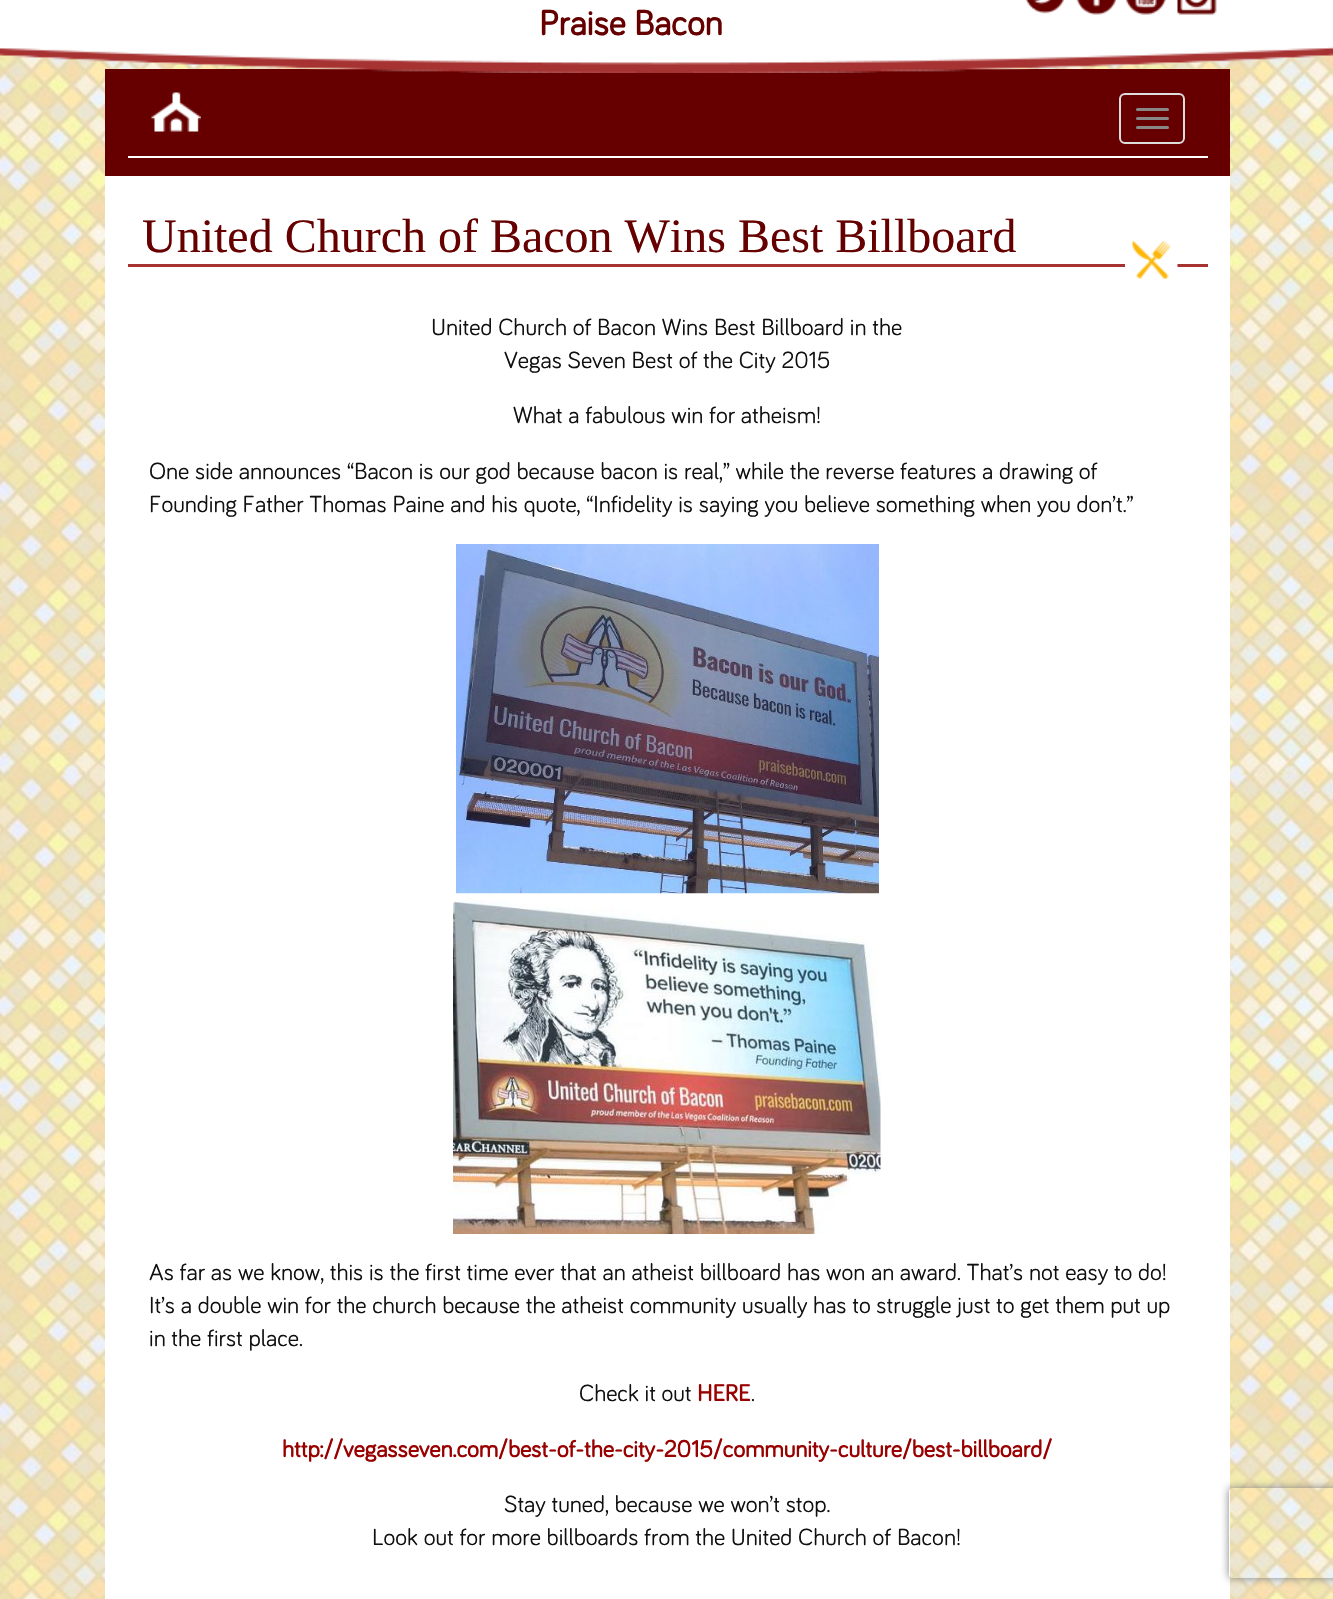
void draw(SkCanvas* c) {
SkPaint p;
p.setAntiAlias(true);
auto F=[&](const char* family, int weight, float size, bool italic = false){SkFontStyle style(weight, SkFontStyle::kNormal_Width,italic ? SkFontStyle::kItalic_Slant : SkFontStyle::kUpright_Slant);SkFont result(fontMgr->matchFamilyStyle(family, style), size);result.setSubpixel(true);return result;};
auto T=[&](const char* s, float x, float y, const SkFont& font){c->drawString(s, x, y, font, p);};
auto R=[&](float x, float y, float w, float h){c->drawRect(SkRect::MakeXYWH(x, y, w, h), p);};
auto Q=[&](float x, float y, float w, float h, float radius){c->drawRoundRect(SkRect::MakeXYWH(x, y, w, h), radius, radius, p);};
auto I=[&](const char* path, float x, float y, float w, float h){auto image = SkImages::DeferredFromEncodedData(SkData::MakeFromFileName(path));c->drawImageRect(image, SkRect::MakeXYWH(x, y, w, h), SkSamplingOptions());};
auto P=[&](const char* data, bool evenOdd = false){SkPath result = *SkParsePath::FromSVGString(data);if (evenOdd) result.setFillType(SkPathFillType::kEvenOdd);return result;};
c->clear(0xffffffff);
I("1.png",0,53,1333,1546);
p.setColor(0xff660000);
R(105,69,1125,107);
I("2.png",0,0,1333,73);
I("3.png",1025,0,39,14);
I("4.png",1076,0,40,15);
I("5.png",1126,0,40,15);
I("6.png",1177,0,40,15);
auto f1 = F("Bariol",700,36);
T("Praise Bacon",539,35,f1);
p.setColor(0xffffffff);
R(128,156,1080,2);
I("7.png",151,92,50,40);
p.setStroke(true);
p.setStrokeWidth(2);
p.setColor(0xffdddddd);
c->drawRoundRect(SkRect::MakeXYWH(1120,94,64,49),5,5,p);
p.setStroke(false);
p.setColor(0xff888888);
Q(1136,108,33,3,1.5);
Q(1136,117,33,3,1.5);
Q(1136,126,33,3,1.5);
p.setColor(0xffffffff);
R(105,176,1125,1423);
p.setColor(0xffa73232);
R(128,264,1080,3);
auto f2 = F("Liberation Serif",400,48);
p.setColor(0xff660000);
T("United Church of Bacon Wins Best Billboard",142,252,f2);
I("8.png",1125,240,53,39);
auto f3 = F("Bariol",400,24);
p.setColor(0xff101010);
T("United Church of Bacon Wins Best Billboard in the",431,335,f3);
T("Vegas Seven Best of the City 2015",504,368,f3);
T("What a fabulous win for atheism!",513,423,f3);
T("One side announces “Bacon is our god because bacon is real,” while the reverse features a drawing of",149,479,f3);
T("Founding Father Thomas Paine and his quote, “Infidelity is saying you believe something when you don’t.”",149,512,f3);
I("9.png",456,544,423,350);
I("10.png",453,893,428,341);
T("As far as we know, this is the first time ever that an atheist billboard has won an award. That’s not easy to do!",149,1280,f3);
T("It’s a double win for the church because the atheist community usually has to struggle just to get them put up",149,1313,f3);
T("in the first place.",149,1346,f3);
T("Check it out",579,1401,f3);
auto f4 = F("Bariol",700,24);
p.setColor(0xff990000);
T("HERE",697,1401,f4);
p.setColor(0xff101010);
T(".",751,1401,f3);
p.setColor(0xff990000);
T("http://vegasseven.com/best-of-the-city-2015/community-culture/best-billboard/",282,1457,f4);
p.setColor(0xff101010);
T("Stay tuned, because we won’t stop.",504,1512,f3);
T("Look out for more billboards from the United Church of Bacon!",372,1545,f3);
c->save();
c->clipPath(P("M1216 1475h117v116h-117zm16 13h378c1.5 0 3 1.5 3 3v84c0 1.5-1.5 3-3 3h-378c-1.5 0-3-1.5-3-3v-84c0-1.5 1.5-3 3-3z",true),true);
p.setColor(0xff808080);
p.setMaskFilter(SkMaskFilter::MakeBlur(kNormal_SkBlurStyle, 4));
c->drawRoundRect(SkRect::MakeXYWH(1229,1488,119,90),3,3,p);
p.setMaskFilter(nullptr);
c->restore();
}
